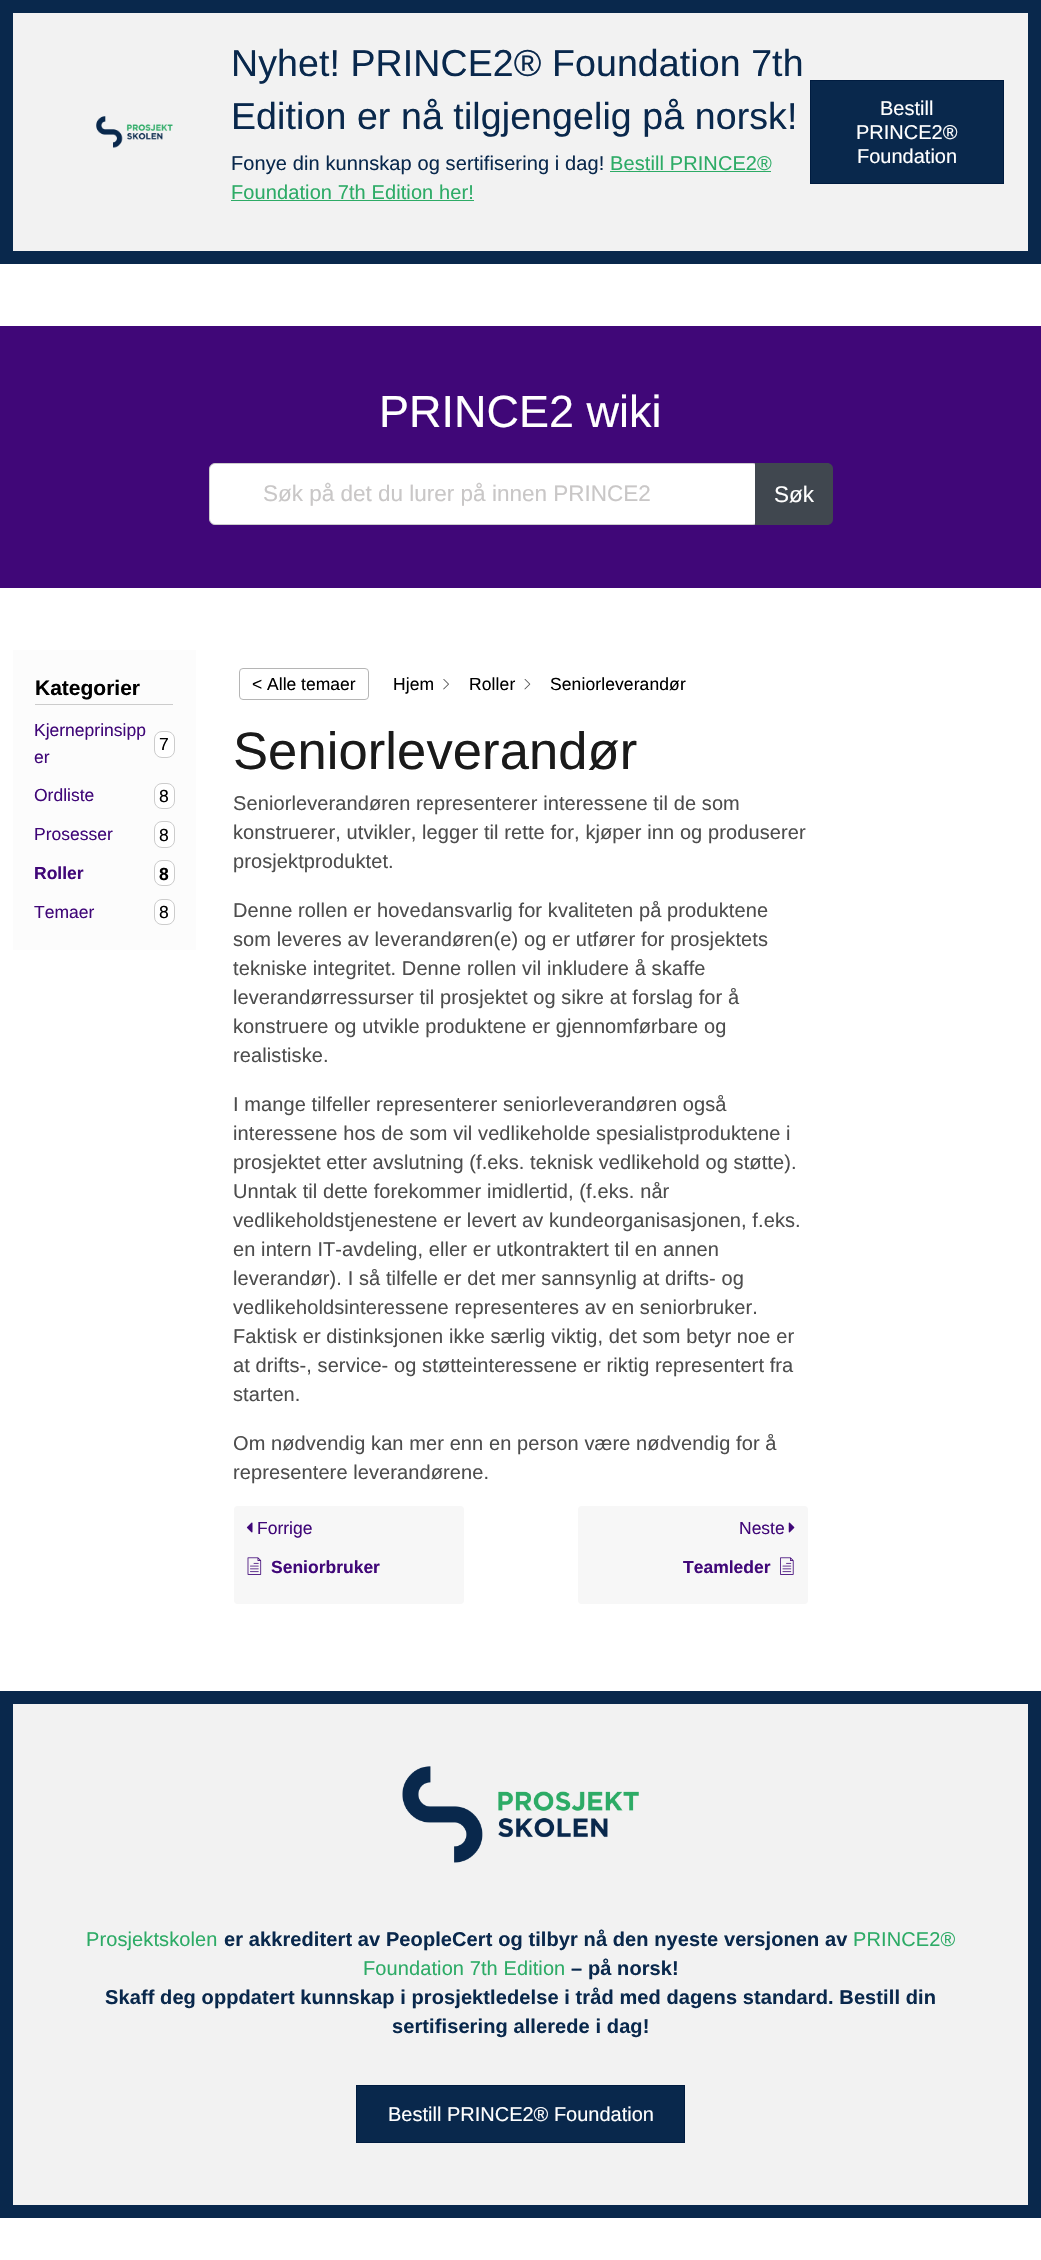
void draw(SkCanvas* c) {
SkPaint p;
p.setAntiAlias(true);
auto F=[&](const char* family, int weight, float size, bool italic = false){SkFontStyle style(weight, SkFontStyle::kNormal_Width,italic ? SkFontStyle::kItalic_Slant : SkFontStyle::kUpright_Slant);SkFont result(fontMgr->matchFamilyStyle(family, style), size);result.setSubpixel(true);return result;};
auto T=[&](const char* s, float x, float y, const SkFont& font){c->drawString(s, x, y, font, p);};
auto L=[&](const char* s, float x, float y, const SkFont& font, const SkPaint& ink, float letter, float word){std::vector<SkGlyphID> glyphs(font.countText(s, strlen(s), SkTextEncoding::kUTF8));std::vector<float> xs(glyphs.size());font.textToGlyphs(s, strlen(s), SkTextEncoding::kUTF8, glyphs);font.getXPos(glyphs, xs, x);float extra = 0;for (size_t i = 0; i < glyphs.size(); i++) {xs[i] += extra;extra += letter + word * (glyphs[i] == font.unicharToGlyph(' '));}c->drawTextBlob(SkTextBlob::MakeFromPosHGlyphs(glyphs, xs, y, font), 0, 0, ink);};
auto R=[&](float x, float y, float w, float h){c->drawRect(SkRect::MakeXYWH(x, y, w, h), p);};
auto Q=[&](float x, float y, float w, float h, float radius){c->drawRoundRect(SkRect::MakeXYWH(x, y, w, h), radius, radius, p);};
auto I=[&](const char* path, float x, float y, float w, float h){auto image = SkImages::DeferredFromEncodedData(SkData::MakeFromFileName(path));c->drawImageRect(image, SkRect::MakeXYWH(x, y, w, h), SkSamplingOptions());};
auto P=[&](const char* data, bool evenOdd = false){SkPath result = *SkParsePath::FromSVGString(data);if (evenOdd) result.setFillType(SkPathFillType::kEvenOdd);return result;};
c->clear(0xffffffff);
p.setColor(0xfff2f2f2);
c->drawRect(SkRect::MakeXYWH(6.5,6.5,1028,251),p);
p.setStroke(true);
p.setStrokeWidth(13);
p.setColor(0xff09284c);
c->drawRect(SkRect::MakeXYWH(6.5,6.5,1028,251),p);
I("1.png",96,116,77,32);
auto f1 = F("Liberation Sans",400,37.5);
p.setStroke(false);
L("Nyhet! PRINCE2® Foundation 7th",231,76,f1,p,.1,0);
L("Edition er nå tilgjengelig på norsk!",231,129,f1,p,.1,0);
auto f2 = F("Liberation Sans",400,20);
L("Fonye din kunnskap og sertifisering i dag!",231,170,f2,p,.1,0);
p.setColor(0xff2dab66);
L("Bestill PRINCE2®",610,170,f2,p,.1,0);
R(610,171,161,1);
L("Foundation 7th Edition her!",231,199,f2,p,.1,0);
R(231,200,243,1);
p.setColor(0xff09284c);
c->drawRect(SkRect::MakeXYWH(810.5,80.5,193,103),p);
p.setStroke(true);
p.setStrokeWidth(1);
p.setColor(0xff001c40);
c->drawRect(SkRect::MakeXYWH(810.5,80.5,193,103),p);
p.setStroke(false);
p.setColor(0xffffffff);
T("Bestill",880,115,f2);
T("PRINCE2®",856,139,f2);
T("Foundation",857,163,f2);
p.setColor(0xff400778);
R(0,326,1041,262);
auto f3 = F("Liberation Sans",400,45);
p.setColor(0xffffffff);
T("PRINCE2 wiki",379,427,f3);
c->drawRoundRect(SkRect::MakeXYWH(209.5,463.5,549,61),5.5,5.5,p);
p.setStroke(true);
p.setColor(0xffcccccc);
c->drawRoundRect(SkRect::MakeXYWH(209.5,463.5,549,61),5.5,5.5,p);
auto f4 = F("Liberation Sans",400,22.5);
p.setStroke(false);
p.setColor(0xffc9c7c7);
T("Søk på det du lurer på innen PRINCE2",263,501,f4);
p.setColor(0xff40474f);
c->drawPath(P("M755 463h72c3.5 0 6 2.5 6 6v50c0 3.5-2.5 6-6 6h-72z"),p);
p.setColor(0xffffffff);
T("Søk",774,502,f4);
p.setColor(0xfffcfcfc);
R(13,650,183,300);
p.setColor(0xffcccccc);
R(35,704,138,1);
auto f5 = F("Liberation Sans",700,21);
p.setColor(0xff000000);
T("Kategorier",35,695,f5);
auto f6 = F("Liberation Sans",400,17.5);
p.setColor(0xff400778);
T("Kjerneprinsipp",34,736,f6);
T("er",34,763,f6);
p.setColor(0xffffffff);
c->drawRoundRect(SkRect::MakeXYWH(154.5,731.5,20,26),7.5,7.5,p);
p.setStroke(true);
p.setColor(0xffcccccc);
c->drawRoundRect(SkRect::MakeXYWH(154.5,731.5,20,26),7.5,7.5,p);
p.setStroke(false);
p.setColor(0xff000000);
T("7",159,750,f6);
p.setColor(0xff400778);
T("Ordliste",34,801,f6);
p.setColor(0xffffffff);
c->drawRoundRect(SkRect::MakeXYWH(154.5,783.5,20,25),7.5,7.5,p);
p.setStroke(true);
p.setColor(0xffcccccc);
c->drawRoundRect(SkRect::MakeXYWH(154.5,783.5,20,25),7.5,7.5,p);
p.setStroke(false);
p.setColor(0xff000000);
T("8",159,802,f6);
p.setColor(0xff400778);
T("Prosesser",34,840,f6);
p.setColor(0xffffffff);
c->drawRoundRect(SkRect::MakeXYWH(154.5,821.5,20,26),7.5,7.5,p);
p.setStroke(true);
p.setColor(0xffcccccc);
c->drawRoundRect(SkRect::MakeXYWH(154.5,821.5,20,26),7.5,7.5,p);
p.setStroke(false);
p.setColor(0xff000000);
T("8",159,841,f6);
auto f7 = F("Liberation Sans",700,17.5);
p.setColor(0xff400778);
T("Roller",34,879,f7);
p.setColor(0xffffffff);
c->drawRoundRect(SkRect::MakeXYWH(154.5,860.5,20,25),7.5,7.5,p);
p.setStroke(true);
p.setColor(0xffcccccc);
c->drawRoundRect(SkRect::MakeXYWH(154.5,860.5,20,25),7.5,7.5,p);
p.setStroke(false);
p.setColor(0xff000000);
T("8",159,880,f7);
p.setColor(0xff400778);
T("Temaer",34,918,f6);
p.setColor(0xffffffff);
c->drawRoundRect(SkRect::MakeXYWH(154.5,899.5,20,25),7.5,7.5,p);
p.setStroke(true);
p.setColor(0xffcccccc);
c->drawRoundRect(SkRect::MakeXYWH(154.5,899.5,20,25),7.5,7.5,p);
p.setStroke(false);
p.setColor(0xff000000);
T("8",159,918,f6);
p.setStroke(true);
p.setColor(0xffb5b5b5);
c->drawRoundRect(SkRect::MakeXYWH(239.5,668.5,129,31),3.5,3.5,p);
p.setStroke(false);
p.setColor(0xff000000);
T("< Alle temaer",252,690,f6);
L("Hjem",393,690,f6,p,.1,0);
I("2.png",443,679,6,11);
L("Roller",469,690,f6,p,.1,0);
I("3.png",524,679,7,11);
L("Seniorleverandør",550,690,f6,p,.1,0);
auto f8 = F("Liberation Sans",400,52.5);
p.setColor(0xff1a1a1a);
L("Seniorleverandør",233,769,f8,p,.1,0);
p.setColor(0xff4d4d4d);
L("Seniorleverandøren representerer interessene til de som",233,810,f2,p,.1,0);
L("konstruerer, utvikler, legger til rette for, kjøper inn og produserer",233,839,f2,p,.1,0);
L("prosjektproduktet.",233,868,f2,p,.1,0);
L("Denne rollen er hovedansvarlig for kvaliteten på produktene",233,917,f2,p,.1,0);
L("som leveres av leverandøren(e) og er utfører for prosjektets",233,946,f2,p,.1,0);
L("tekniske integritet. Denne rollen vil inkludere å skaffe",233,975,f2,p,.1,0);
L("leverandørressurser til prosjektet og sikre at forslag for å",233,1004,f2,p,.1,0);
L("konstruere og utvikle produktene er gjennomførbare og",233,1033,f2,p,.1,0);
L("realistiske.",233,1062,f2,p,.1,0);
L("I mange tilfeller representerer seniorleverandøren også",233,1111,f2,p,.1,0);
L("interessene hos de som vil vedlikeholde spesialistproduktene i",233,1140,f2,p,.1,0);
L("prosjektet etter avslutning (f.eks. teknisk vedlikehold og støtte).",233,1169,f2,p,.1,0);
L("Unntak til dette forekommer imidlertid, (f.eks. når",233,1198,f2,p,.1,0);
L("vedlikeholdstjenestene er levert av kundeorganisasjonen, f.eks.",233,1227,f2,p,.1,0);
L("en intern IT-avdeling, eller er utkontraktert til en annen",233,1256,f2,p,.1,0);
L("leverandør). I så tilfelle er det mer sannsynlig at drifts- og",233,1285,f2,p,.1,0);
L("vedlikeholdsinteressene representeres av en seniorbruker.",233,1314,f2,p,.1,0);
L("Faktisk er distinksjonen ikke særlig viktig, det som betyr noe er",233,1343,f2,p,.1,0);
L("at drifts-, service- og støtteinteressene er riktig representert fra",233,1372,f2,p,.1,0);
L("starten.",233,1401,f2,p,.1,0);
L("Om nødvendig kan mer enn en person være nødvendig for å",233,1450,f2,p,.1,0);
L("representere leverandørene.",233,1479,f2,p,.1,0);
p.setColor(0xfff7f7f7);
Q(234,1506,230,98,4);
I("4.png",246,1522,7,11);
p.setColor(0xff400778);
T("Forrige",257,1534,f6);
I("5.png",247,1557,15,18);
T("Seniorbruker",271,1573,f7);
p.setColor(0xfff7f7f7);
Q(578,1506,230,98,4);
p.setColor(0xff400778);
T("Neste",739,1534,f6);
I("6.png",788,1522,7,11);
T("Teamleder",683,1573,f7);
I("7.png",780,1557,14,18);
p.setColor(0xfff2f2f2);
c->drawRect(SkRect::MakeXYWH(6.5,1697.5,1028,514),p);
p.setStroke(true);
p.setStrokeWidth(13);
p.setColor(0xff09284c);
c->drawRect(SkRect::MakeXYWH(6.5,1697.5,1028,514),p);
I("8.png",402,1766,237,97);
p.setStroke(false);
p.setColor(0xff2dab66);
L("Prosjektskolen",86,1946,f2,p,.1,0);
auto f9 = F("Liberation Sans",700,20);
p.setColor(0xff09284c);
L("er akkreditert av PeopleCert og tilbyr nå den nyeste versjonen av",224,1946,f9,p,.1,0);
p.setColor(0xff2dab66);
L("PRINCE2®",853,1946,f2,p,.1,0);
L("Foundation 7th Edition",363,1975,f2,p,.1,0);
p.setColor(0xff09284c);
L("– på norsk!",571,1975,f9,p,.1,0);
L("Skaff deg oppdatert kunnskap i prosjektledelse i tråd med dagens standard. Bestill din",105,2004,f9,p,.1,0);
L("sertifisering allerede i dag!",392,2033,f9,p,.1,0);
c->drawRect(SkRect::MakeXYWH(356.5,2085.5,328,57),p);
p.setStroke(true);
p.setStrokeWidth(1);
p.setColor(0xff001c40);
c->drawRect(SkRect::MakeXYWH(356.5,2085.5,328,57),p);
p.setStroke(false);
p.setColor(0xffffffff);
T("Bestill PRINCE2® Foundation",388,2121,f2);
}
